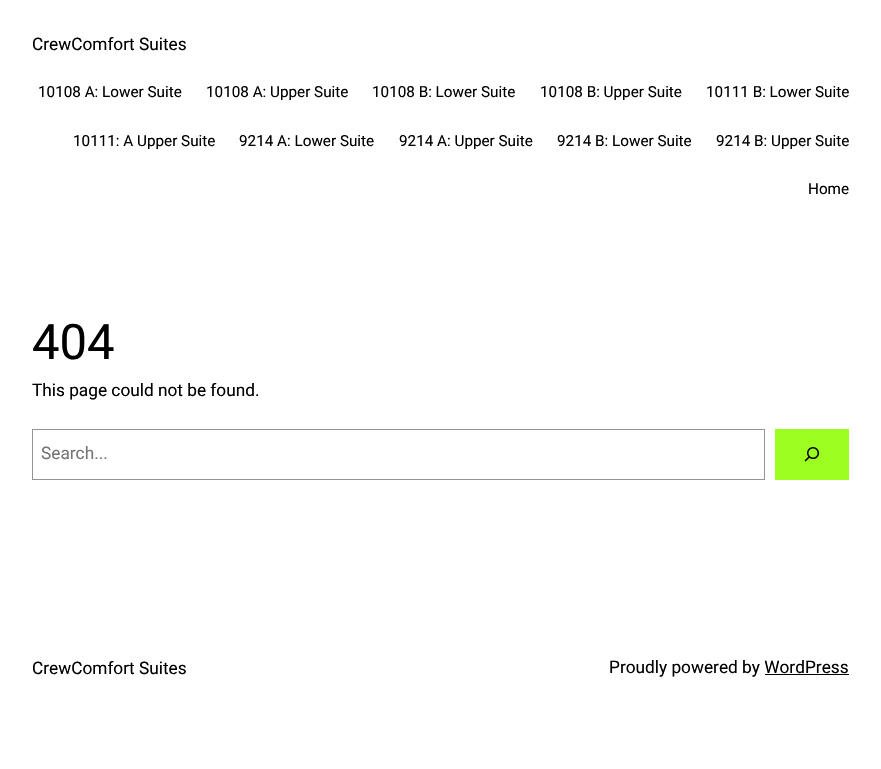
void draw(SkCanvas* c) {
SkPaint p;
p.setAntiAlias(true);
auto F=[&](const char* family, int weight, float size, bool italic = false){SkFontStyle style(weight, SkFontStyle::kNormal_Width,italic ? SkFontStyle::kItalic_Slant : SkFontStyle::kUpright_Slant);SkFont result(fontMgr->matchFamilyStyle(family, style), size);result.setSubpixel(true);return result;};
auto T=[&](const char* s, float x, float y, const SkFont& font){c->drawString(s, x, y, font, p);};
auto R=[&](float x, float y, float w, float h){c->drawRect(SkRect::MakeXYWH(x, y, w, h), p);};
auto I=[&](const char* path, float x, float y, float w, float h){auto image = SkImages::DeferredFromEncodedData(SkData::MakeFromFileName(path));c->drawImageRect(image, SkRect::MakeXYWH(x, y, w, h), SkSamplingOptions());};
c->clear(0xffffffff);
auto f1 = F("Roboto",400,17.25);
p.setColor(0xff000000);
T("CrewComfort Suites",32,50,f1);
auto f2 = F("Roboto",400,15.25);
T("10108 A: Lower Suite",38,97,f2);
T("10108 A: Upper Suite",206,97,f2);
T("10108 B: Lower Suite",372,97,f2);
T("10108 B: Upper Suite",540,97,f2);
T("10111 B: Lower Suite",706,97,f2);
T("10111: A Upper Suite",73,146,f2);
T("9214 A: Lower Suite",239,146,f2);
T("9214 A: Upper Suite",399,146,f2);
T("9214 B: Lower Suite",557,146,f2);
T("9214 B: Upper Suite",716,146,f2);
T("Home",808,194,f2);
auto f3 = F("Roboto",400,49);
T("404",32,359,f3);
T("This page could not be found.",32,396,f1);
p.setStroke(true);
p.setStrokeWidth(1);
p.setColor(0xff949494);
c->drawRect(SkRect::MakeXYWH(32.5,429.5,732,50),p);
p.setStroke(false);
p.setColor(0xff757575);
T("Search...",41,459,f1);
p.setColor(0xff9dff20);
R(775,429,74,51);
I("1.png",804,447,16,15);
p.setColor(0xff000000);
T("CrewComfort Suites",32,674,f1);
T("Proudly powered by WordPress",609,673,f1);
R(765,674,84,1);
}
